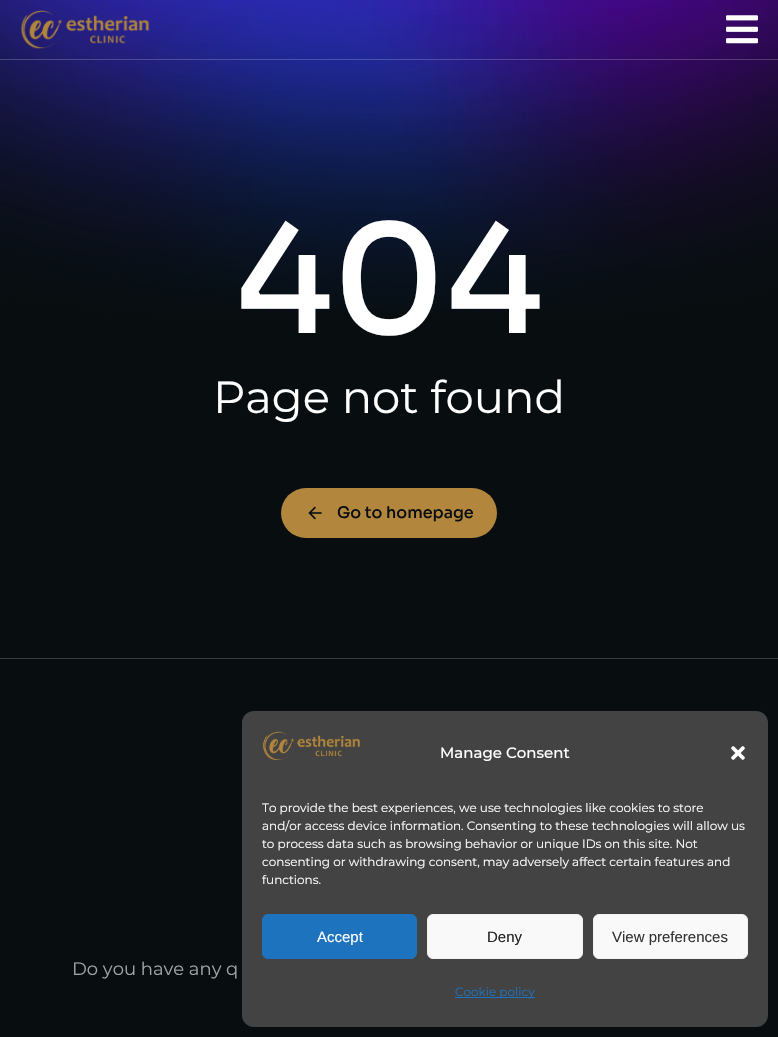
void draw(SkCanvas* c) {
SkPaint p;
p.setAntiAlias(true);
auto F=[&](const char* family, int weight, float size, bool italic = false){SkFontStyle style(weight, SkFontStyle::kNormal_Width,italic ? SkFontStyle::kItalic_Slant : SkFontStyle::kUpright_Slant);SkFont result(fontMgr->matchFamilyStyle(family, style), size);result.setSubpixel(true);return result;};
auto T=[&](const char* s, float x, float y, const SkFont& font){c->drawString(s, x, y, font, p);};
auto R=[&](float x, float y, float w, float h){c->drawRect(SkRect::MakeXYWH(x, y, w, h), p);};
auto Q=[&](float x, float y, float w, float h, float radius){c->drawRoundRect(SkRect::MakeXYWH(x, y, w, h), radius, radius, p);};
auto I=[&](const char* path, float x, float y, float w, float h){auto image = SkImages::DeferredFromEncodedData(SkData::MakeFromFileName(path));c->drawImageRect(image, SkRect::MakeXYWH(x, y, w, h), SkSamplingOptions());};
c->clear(0xff080e10);
I("1.png",0,0,778,313);
p.setColor(0x33ffffff);
R(0,59,778,1);
I("2.png",21,10,129,39);
I("3.png",726,15,32,29);
auto f1 = F("Sora",500,150);
p.setColor(0xffffffff);
T("404",235,333,f1);
auto f2 = F("Montserrat",400,45);
T("Page not found",213,413,f2);
p.setColor(0xffb3863d);
Q(281,488,216,50,25);
I("4.png",308,506,14,14);
auto f3 = F("Sora",500,16);
p.setColor(0xff080e10);
T("Go to homepage",337,518,f3);
p.setColor(0xff393e40);
R(0,658,778,1);
auto f4 = F("Montserrat",400,18);
p.setColor(0xffa1a4a5);
T("Do you have any q",72,975,f4);
p.setColor(0xff434343);
Q(242,711,526,316,12);
I("5.png",262,731,98,30);
auto f5 = F("Montserrat",500,15);
p.setColor(0xffffffff);
T("Manage Consent",440,758,f5);
I("6.png",731,746,14,14);
auto f6 = F("Montserrat",400,12);
T("To provide the best experiences, we use technologies like cookies to store",262,812,f6);
T("and/or access device information. Consenting to these technologies will allow us",262,830,f6);
T("to process data such as browsing behavior or unique IDs on this site. Not",262,848,f6);
T("consenting or withdrawing consent, may adversely affect certain features and",262,866,f6);
T("functions.",262,884,f6);
p.setColor(0xff1e73be);
c->drawRoundRect(SkRect::MakeXYWH(262.5,914.5,154,44),5.5,5.5,p);
p.setStroke(true);
p.setStrokeWidth(1);
c->drawRoundRect(SkRect::MakeXYWH(262.5,914.5,154,44),5.5,5.5,p);
auto f7 = F("Liberation Sans",400,15);
p.setStroke(false);
p.setColor(0xffffffff);
T("Accept",317,942,f7);
p.setColor(0xfff9f9f9);
c->drawRoundRect(SkRect::MakeXYWH(427.5,914.5,155,44),5.5,5.5,p);
p.setStroke(true);
p.setColor(0xfff2f2f2);
c->drawRoundRect(SkRect::MakeXYWH(427.5,914.5,155,44),5.5,5.5,p);
p.setStroke(false);
p.setColor(0xff222222);
T("Deny",487,942,f7);
p.setColor(0xfff9f9f9);
c->drawRoundRect(SkRect::MakeXYWH(593.5,914.5,154,44),5.5,5.5,p);
p.setStroke(true);
p.setColor(0xfff2f2f2);
c->drawRoundRect(SkRect::MakeXYWH(593.5,914.5,154,44),5.5,5.5,p);
p.setStroke(false);
p.setColor(0xff333333);
T("View preferences",612,942,f7);
p.setColor(0xff1e73be);
R(455,997,80,1);
T("Cookie policy",455,996,f6);
}
